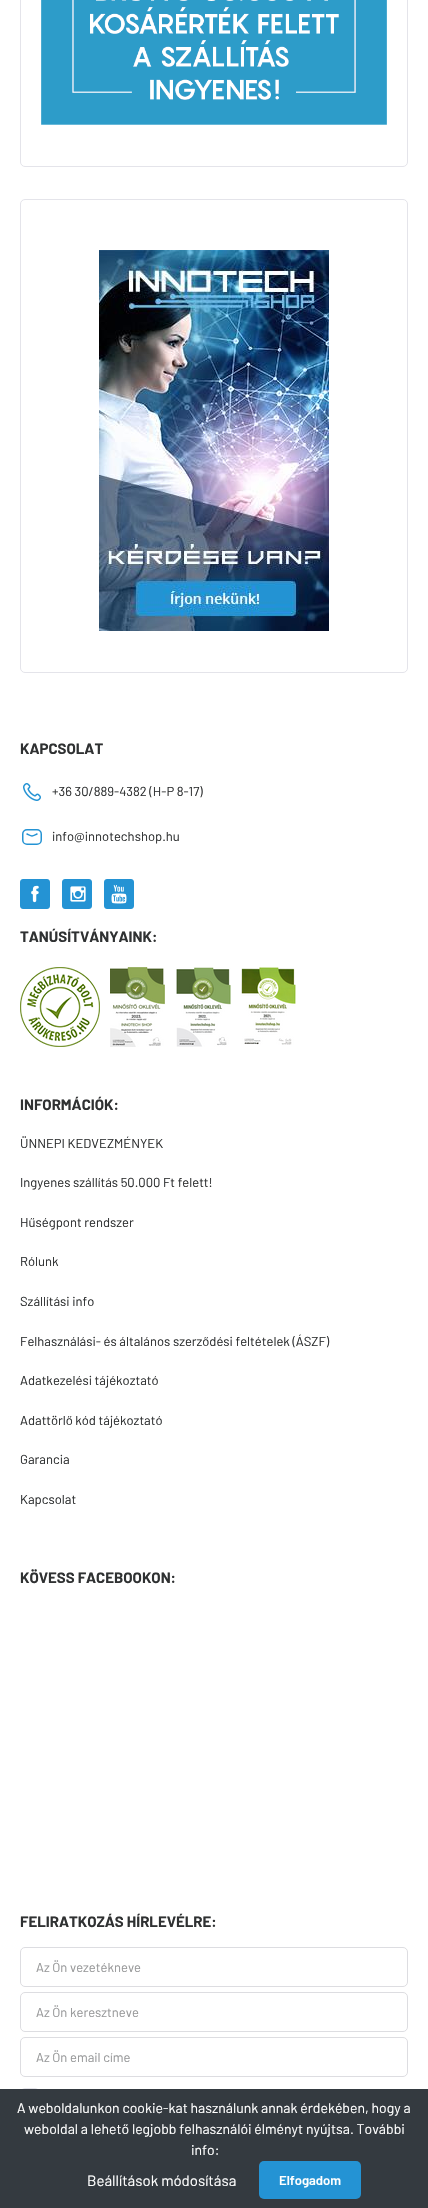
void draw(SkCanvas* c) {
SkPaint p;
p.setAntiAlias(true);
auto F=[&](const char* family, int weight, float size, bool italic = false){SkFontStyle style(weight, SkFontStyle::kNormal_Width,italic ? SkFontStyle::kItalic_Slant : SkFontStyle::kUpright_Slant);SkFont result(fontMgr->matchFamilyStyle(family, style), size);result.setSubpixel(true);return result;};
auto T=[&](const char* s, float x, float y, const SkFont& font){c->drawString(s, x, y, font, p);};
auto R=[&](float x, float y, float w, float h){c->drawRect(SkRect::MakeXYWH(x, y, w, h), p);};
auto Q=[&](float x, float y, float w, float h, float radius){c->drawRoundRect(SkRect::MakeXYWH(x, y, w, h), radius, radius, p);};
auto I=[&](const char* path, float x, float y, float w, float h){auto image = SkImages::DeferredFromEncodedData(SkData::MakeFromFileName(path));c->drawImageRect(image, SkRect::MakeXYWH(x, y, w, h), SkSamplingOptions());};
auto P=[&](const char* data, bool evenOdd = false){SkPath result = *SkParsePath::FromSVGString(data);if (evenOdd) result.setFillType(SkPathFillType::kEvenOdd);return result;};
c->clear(0xffffffff);
p.setStroke(true);
p.setStrokeWidth(1);
p.setColor(0xffe4e4ea);
c->drawRoundRect(SkRect::MakeXYWH(20.5,-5.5,387,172),4.5,4.5,p);
I("1.png",41,0,346,125);
c->drawRoundRect(SkRect::MakeXYWH(20.5,199.5,387,473),4.5,4.5,p);
I("2.png",99,250,230,381);
auto f1 = F("Barlow",700,15);
p.setStroke(false);
p.setColor(0xff2f3132);
T("KAPCSOLAT",20,754,f1);
I("3.png",23,783,18,18);
auto f2 = F("Barlow",400,13);
T("+36 30/889-4382 (H-P 8-17)",52,796,f2);
p.setStroke(true);
p.setStrokeWidth(1.5);
p.setColor(0xff2493d4);
c->drawRoundRect(SkRect::MakeXYWH(22.75,829.75,18.5,14.5),4.25,4.25,p);
p.setStrokeCap(SkPaint::kRound_Cap);
p.setStrokeJoin(SkPaint::kRound_Join);
c->drawPath(P("M27 834c5.5 2.5 4.5 2.5 10 0"),p);
p.setStroke(false);
p.setColor(0xff2f3132);
T("info@innotechshop.hu",52,841,f2);
I("4.png",20,879,30,30);
I("5.png",62,879,30,30);
I("6.png",104,879,30,30);
T("TANÚSÍTVÁNYAINK:",20,942,f1);
I("7.png",20,967,80,80);
I("8.png",110,967,55,80);
I("9.png",176,967,55,80);
I("10.png",241,967,55,78);
T("INFORMÁCIÓK:",20,1110,f1);
T("ÜNNEPI KEDVEZMÉNYEK",20,1148,f2);
T("Ingyenes szállítás 50.000 Ft felett!",20,1187,f2);
T("Hűségpont rendszer",20,1227,f2);
T("Rólunk",20,1266,f2);
T("Szállítási info",20,1306,f2);
T("Felhasználási- és általános szerződési feltételek (ÁSZF)",20,1346,f2);
T("Adatkezelési tájékoztató",20,1385,f2);
T("Adattörlő kód tájékoztató",20,1425,f2);
T("Garancia",20,1464,f2);
T("Kapcsolat",20,1504,f2);
T("KÖVESS FACEBOOKON:",20,1583,f1);
T("FELIRATKOZÁS HÍRLEVÉLRE:",20,1927,f1);
p.setStroke(true);
p.setStrokeWidth(1);
p.setStrokeCap(SkPaint::kButt_Cap);
p.setStrokeJoin(SkPaint::kMiter_Join);
p.setColor(0xffdddde1);
c->drawRoundRect(SkRect::MakeXYWH(20.5,1947.5,387,39),4.5,4.5,p);
p.setStroke(false);
p.setColor(0xff979899);
T("Az Ön vezetékneve",36,1972,f2);
p.setStroke(true);
p.setColor(0xffdddde1);
c->drawRoundRect(SkRect::MakeXYWH(20.5,1992.5,387,39),4.5,4.5,p);
p.setStroke(false);
p.setColor(0xff979899);
T("Az Ön keresztneve",36,2017,f2);
p.setStroke(true);
p.setColor(0xffdddde1);
c->drawRoundRect(SkRect::MakeXYWH(20.5,2037.5,387,39),4.5,4.5,p);
p.setStroke(false);
p.setColor(0xff979899);
T("Az Ön email címe",36,2062,f2);
p.setStroke(true);
p.setColor(0xffe4e4ea);
c->drawRoundRect(SkRect::MakeXYWH(20.5,2088.5,19,19),4.5,4.5,p);
p.setStroke(false);
p.setColor(0xff343a40);
R(0,2089,428,119);
auto f3 = F("Barlow",400,14);
p.setColor(0xffffffff);
T("A weboldalunkon cookie-kat használunk annak érdekében, hogy a",17,2113,f3);
T("weboldal a lehető legjobb felhasználói élményt nyújtsa. További",24,2134,f3);
T("info:",191,2155,f3);
auto f4 = F("Barlow",400,15);
T("Beállítások módosítása",87,2186,f4);
p.setColor(0xff2493d4);
Q(259,2161,102,38,5);
auto f5 = F("Barlow",600,13);
p.setColor(0xffffffff);
T("Elfogadom",279,2185,f5);
}
